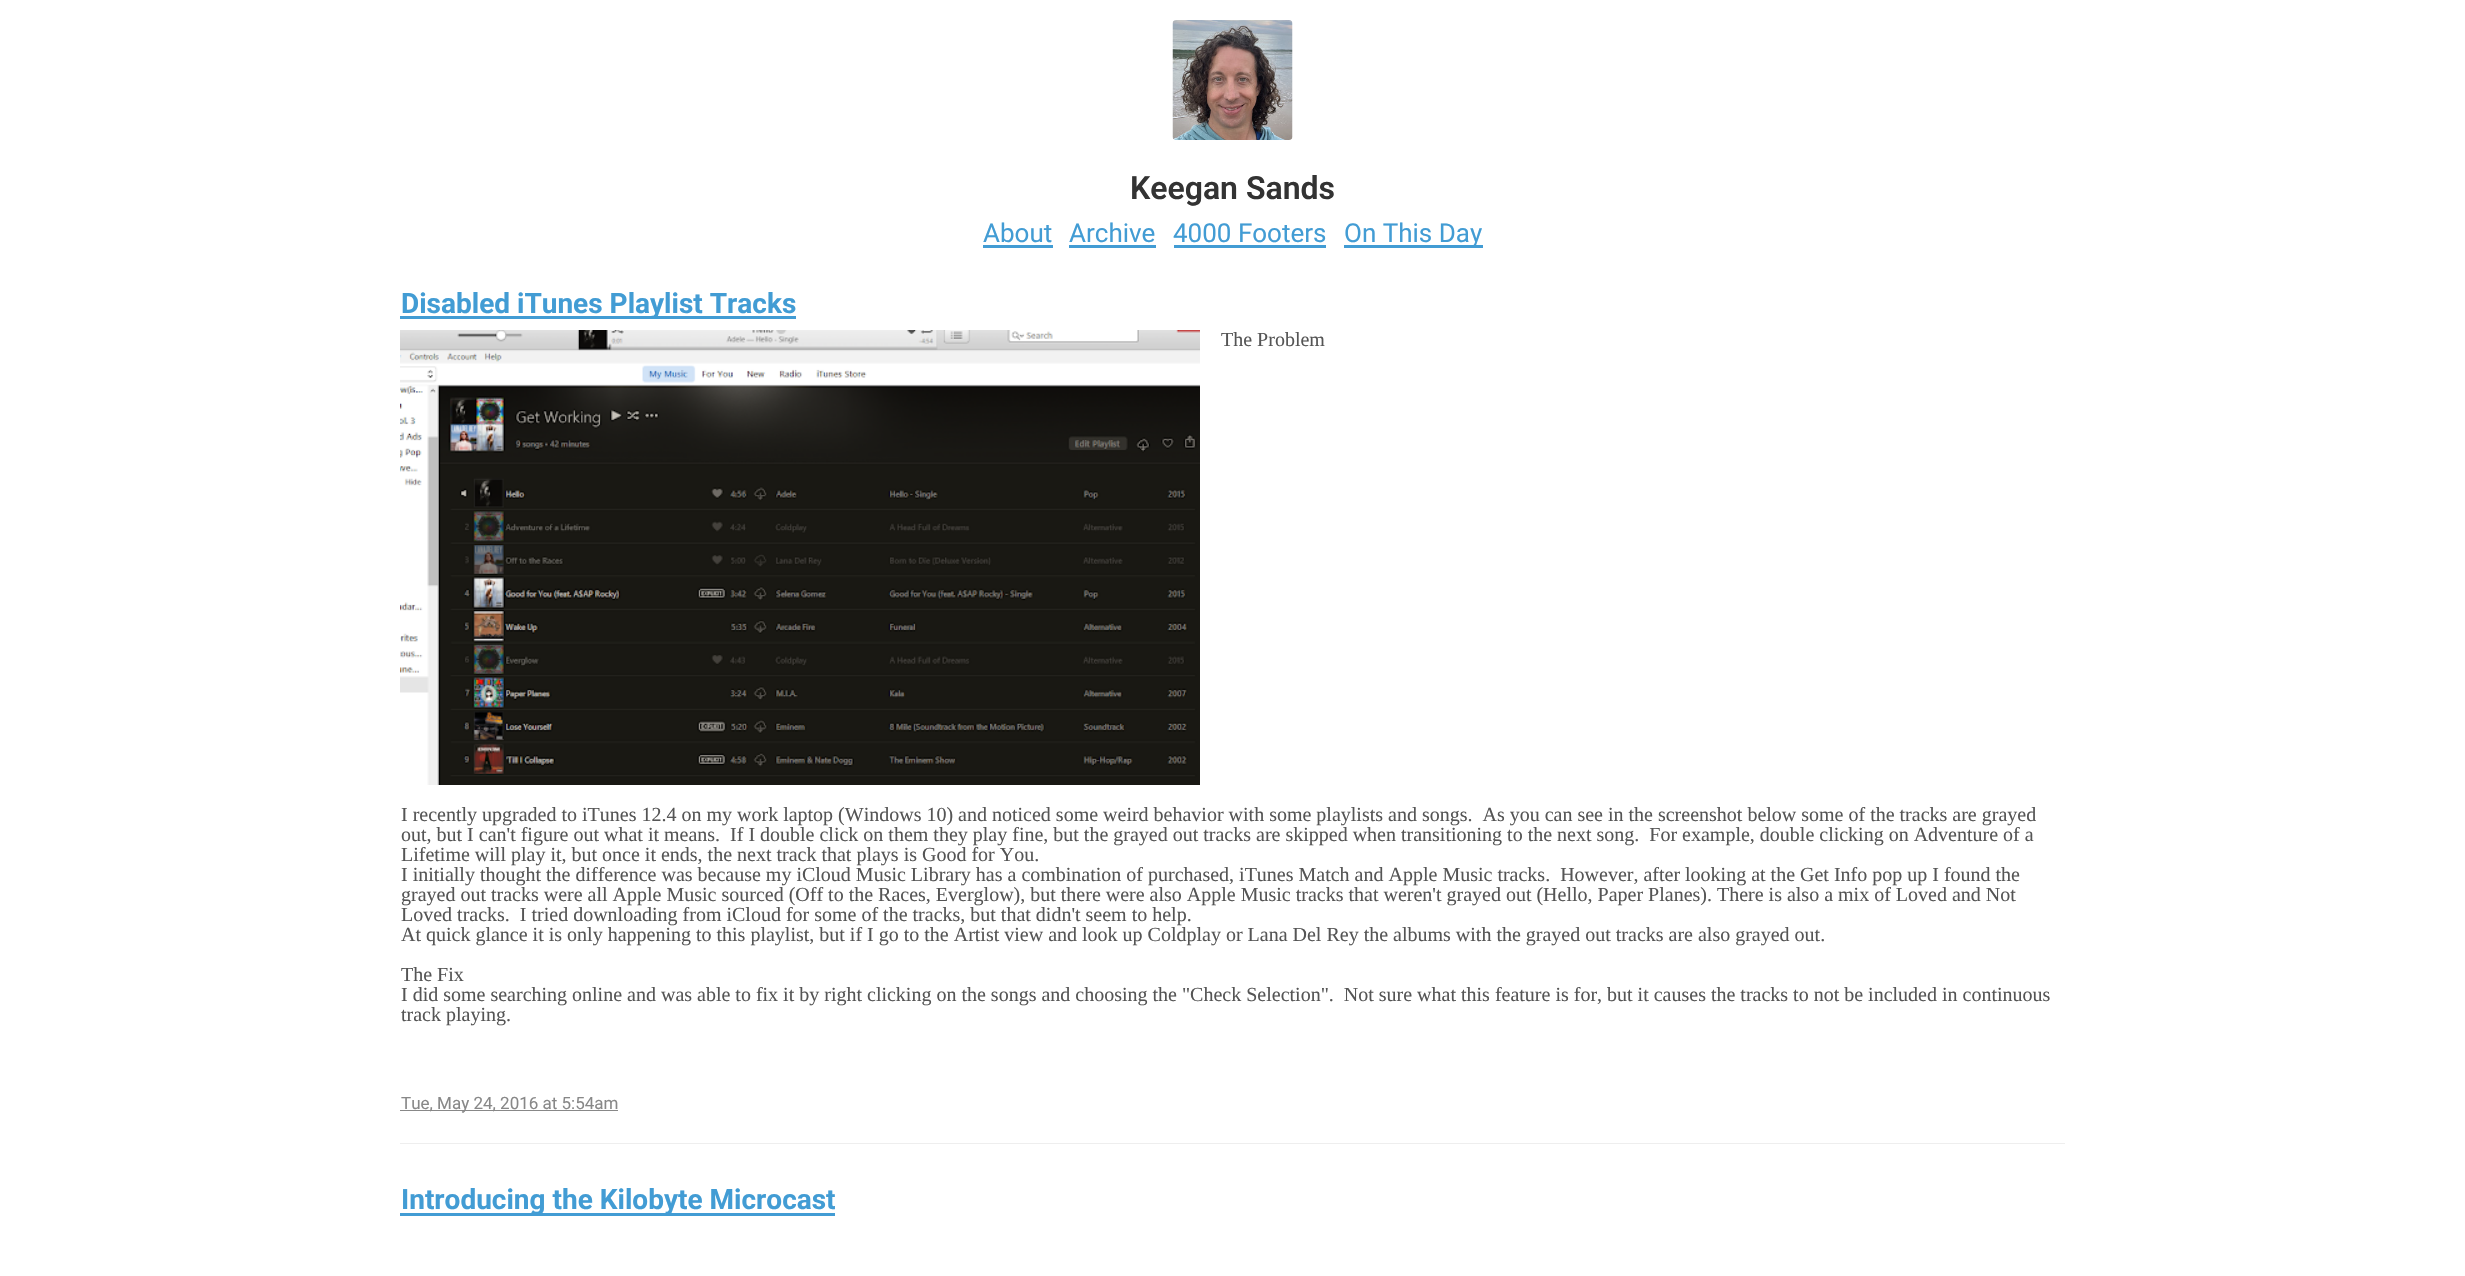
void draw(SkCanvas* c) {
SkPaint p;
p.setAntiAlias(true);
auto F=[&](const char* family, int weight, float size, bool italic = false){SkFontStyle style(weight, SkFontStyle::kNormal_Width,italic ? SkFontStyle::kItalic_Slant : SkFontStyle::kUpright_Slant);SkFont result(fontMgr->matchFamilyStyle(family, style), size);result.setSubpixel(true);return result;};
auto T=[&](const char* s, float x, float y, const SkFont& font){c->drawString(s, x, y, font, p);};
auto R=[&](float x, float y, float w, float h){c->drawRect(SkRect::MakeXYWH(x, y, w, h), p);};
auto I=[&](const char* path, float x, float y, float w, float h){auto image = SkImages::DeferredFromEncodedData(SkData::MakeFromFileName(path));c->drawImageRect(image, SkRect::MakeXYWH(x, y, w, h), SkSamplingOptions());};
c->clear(0xffffffff);
I("1.png",1172,20,121,120);
auto f1 = F("Roboto",600,32);
p.setColor(0xff333333);
T("Keegan Sands",1130,199,f1);
auto f2 = F("Roboto",400,26);
p.setColor(0xff429cd4);
T("About",983,242,f2);
R(983,245,70,3);
T("Archive",1069,242,f2);
R(1069,245,87,3);
T("4000 Footers",1173,242,f2);
R(1174,245,152,3);
R(1344,245,139,3);
T("On This Day",1344,242,f2);
p.setColor(0xffeeeeee);
R(400,1143,1665,1);
p.setColor(0xff429cd4);
R(400,316,396,3);
auto f3 = F("Roboto",700,28);
T("Disabled iTunes Playlist Tracks",401,313,f3);
I("2.png",400,330,800,455);
auto f4 = F("Liberation Serif",400,20);
p.setColor(0xff555555);
T("The Problem",1221,346,f4);
T("I recently upgraded to iTunes 12.4 on my work laptop (Windows 10) and noticed some weird behavior with some playlists and songs.  As you can see in the screenshot below some of the tracks are grayed",401,821,f4);
T("out, but I can't figure out what it means.  If I double click on them they play fine, but the grayed out tracks are skipped when transitioning to the next song.  For example, double clicking on Adventure of a",401,841,f4);
T("Lifetime will play it, but once it ends, the next track that plays is Good for You.",401,861,f4);
T("I initially thought the difference was because my iCloud Music Library has a combination of purchased, iTunes Match and Apple Music tracks.  However, after looking at the Get Info pop up I found the",401,881,f4);
T("grayed out tracks were all Apple Music sourced (Off to the Races, Everglow), but there were also Apple Music tracks that weren't grayed out (Hello, Paper Planes). There is also a mix of Loved and Not",401,901,f4);
T("Loved tracks.  I tried downloading from iCloud for some of the tracks, but that didn't seem to help.",401,921,f4);
T("At quick glance it is only happening to this playlist, but if I go to the Artist view and look up Coldplay or Lana Del Rey the albums with the grayed out tracks are also grayed out.",401,941,f4);
T("The Fix",401,981,f4);
T("I did some searching online and was able to fix it by right clicking on the songs and choosing the \"Check Selection\".  Not sure what this feature is for, but it causes the tracks to not be included in continuous",401,1001,f4);
T("track playing.",401,1021,f4);
p.setColor(0xff888888);
R(400,1110,218,1);
auto f5 = F("Roboto",400,17);
T("Tue, May 24, 2016 at 5:54am",401,1109,f5);
p.setColor(0xff429cd4);
R(400,1213,435,3);
T("Introducing the Kilobyte Microcast",401,1209,f3);
}
